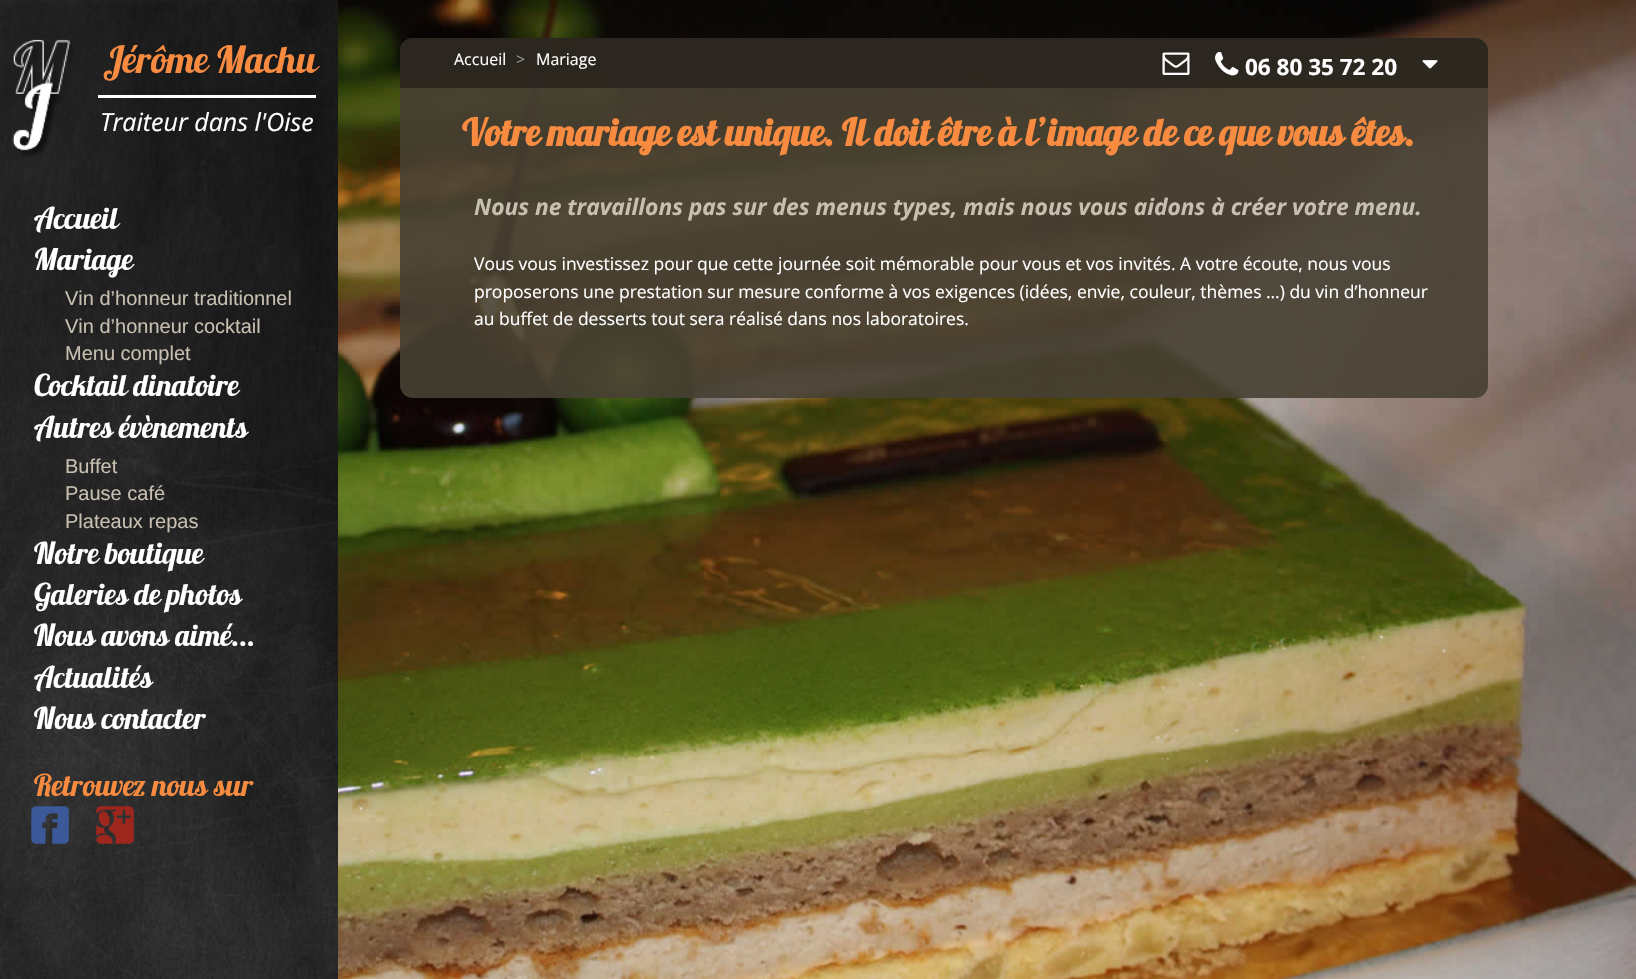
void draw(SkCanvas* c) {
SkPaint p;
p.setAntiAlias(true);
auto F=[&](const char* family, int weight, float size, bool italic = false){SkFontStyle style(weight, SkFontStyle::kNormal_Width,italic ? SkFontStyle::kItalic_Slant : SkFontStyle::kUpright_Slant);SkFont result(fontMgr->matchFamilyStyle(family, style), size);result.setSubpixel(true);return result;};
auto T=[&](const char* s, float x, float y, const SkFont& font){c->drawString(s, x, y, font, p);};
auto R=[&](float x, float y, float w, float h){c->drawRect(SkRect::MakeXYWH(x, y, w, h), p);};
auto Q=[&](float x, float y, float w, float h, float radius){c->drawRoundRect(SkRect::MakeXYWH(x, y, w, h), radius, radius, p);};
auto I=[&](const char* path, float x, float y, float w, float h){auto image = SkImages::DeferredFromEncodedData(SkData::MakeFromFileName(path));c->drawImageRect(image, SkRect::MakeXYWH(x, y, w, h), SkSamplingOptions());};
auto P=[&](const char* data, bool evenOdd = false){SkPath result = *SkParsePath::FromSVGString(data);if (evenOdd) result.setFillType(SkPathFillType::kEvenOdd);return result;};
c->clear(0xffffffff);
I("3.png",0,0,338,979);
I("1.png",12,39,62,118);
auto f1 = F("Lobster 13",400,37.5);
p.setColor(0xfff88b40);
T("Jérôme Machu",103,73,f1);
p.setColor(0xffffffff);
R(98,95,218,3);
auto f2 = F("Open Sans",400,25,true);
T("Traiteur dans l'Oise",100,131,f2);
I("2.png",338,0,1298,979);
auto f3 = F("Lobster 13",400,30);
T("Accueil",34,229,f3);
T("Mariage",34,270,f3);
auto f4 = F("Liberation Sans",400,20);
p.setColor(0xffc7bfb0);
T("Vin d’honneur traditionnel",65,305,f4);
T("Vin d’honneur cocktail",65,333,f4);
T("Menu complet",65,360,f4);
p.setColor(0xffffffff);
T("Cocktail dinatoire",34,396,f3);
T("Autres évènements",34,438,f3);
p.setColor(0xffc7bfb0);
T("Buffet",65,473,f4);
T("Pause café",65,500,f4);
T("Plateaux repas",65,528,f4);
p.setColor(0xffffffff);
T("Notre boutique",34,564,f3);
T("Galeries de photos",34,605,f3);
T("Nous avons aimé...",34,646,f3);
T("Actualités",34,688,f3);
T("Nous contacter",34,729,f3);
p.setColor(0xfff88b40);
T("Retrouvez nous sur",34,796,f3);
I("4.png",31,806,38,38);
I("5.png",96,806,38,38);
p.setColor(0xe6463f32);
Q(400,38,1088,360,13);
p.setColor(0xe628241d);
c->drawPath(P("M413 38h1062c7 0 13 6 13 13v37h-1088v-37c0-7 6-13 13-13z"),p);
auto f5 = F("Open Sans",400,16);
p.setColor(0xffffffff);
T("Accueil",454,65,f5);
p.setColor(0xff999999);
T(">",516,65,f5);
p.setColor(0xffffffff);
T("Mariage",536,65,f5);
I("6.png",1162,52,28,23);
I("7.png",1215,52,24,24);
auto f6 = F("Open Sans",700,22.5);
T("06 80 35 72 20",1245,75,f6);
I("8.png",1422,60,16,9);
auto f7 = F("Lobster 13",700,37.5);
p.setColor(0xfff88b40);
T("Votre mariage est unique. Il doit être à l’image de ce que vous êtes.",462,146,f7);
auto f8 = F("Open Sans",700,22.75,true);
p.setColor(0xffc7bfb0);
T("Nous ne travaillons pas sur des menus types, mais nous vous aidons à créer votre menu.",474,215,f8);
auto f9 = F("Open Sans",400,17.5);
p.setColor(0xffffffff);
T("Vous vous investissez pour que cette journée soit mémorable pour vous et vos invités. A votre écoute, nous vous",474,270,f9);
T("proposerons une prestation sur mesure conforme à vos exigences (idées, envie, couleur, thèmes …) du vin d’honneur",474,298,f9);
T("au buffet de desserts tout sera réalisé dans nos laboratoires.",474,325,f9);
}
